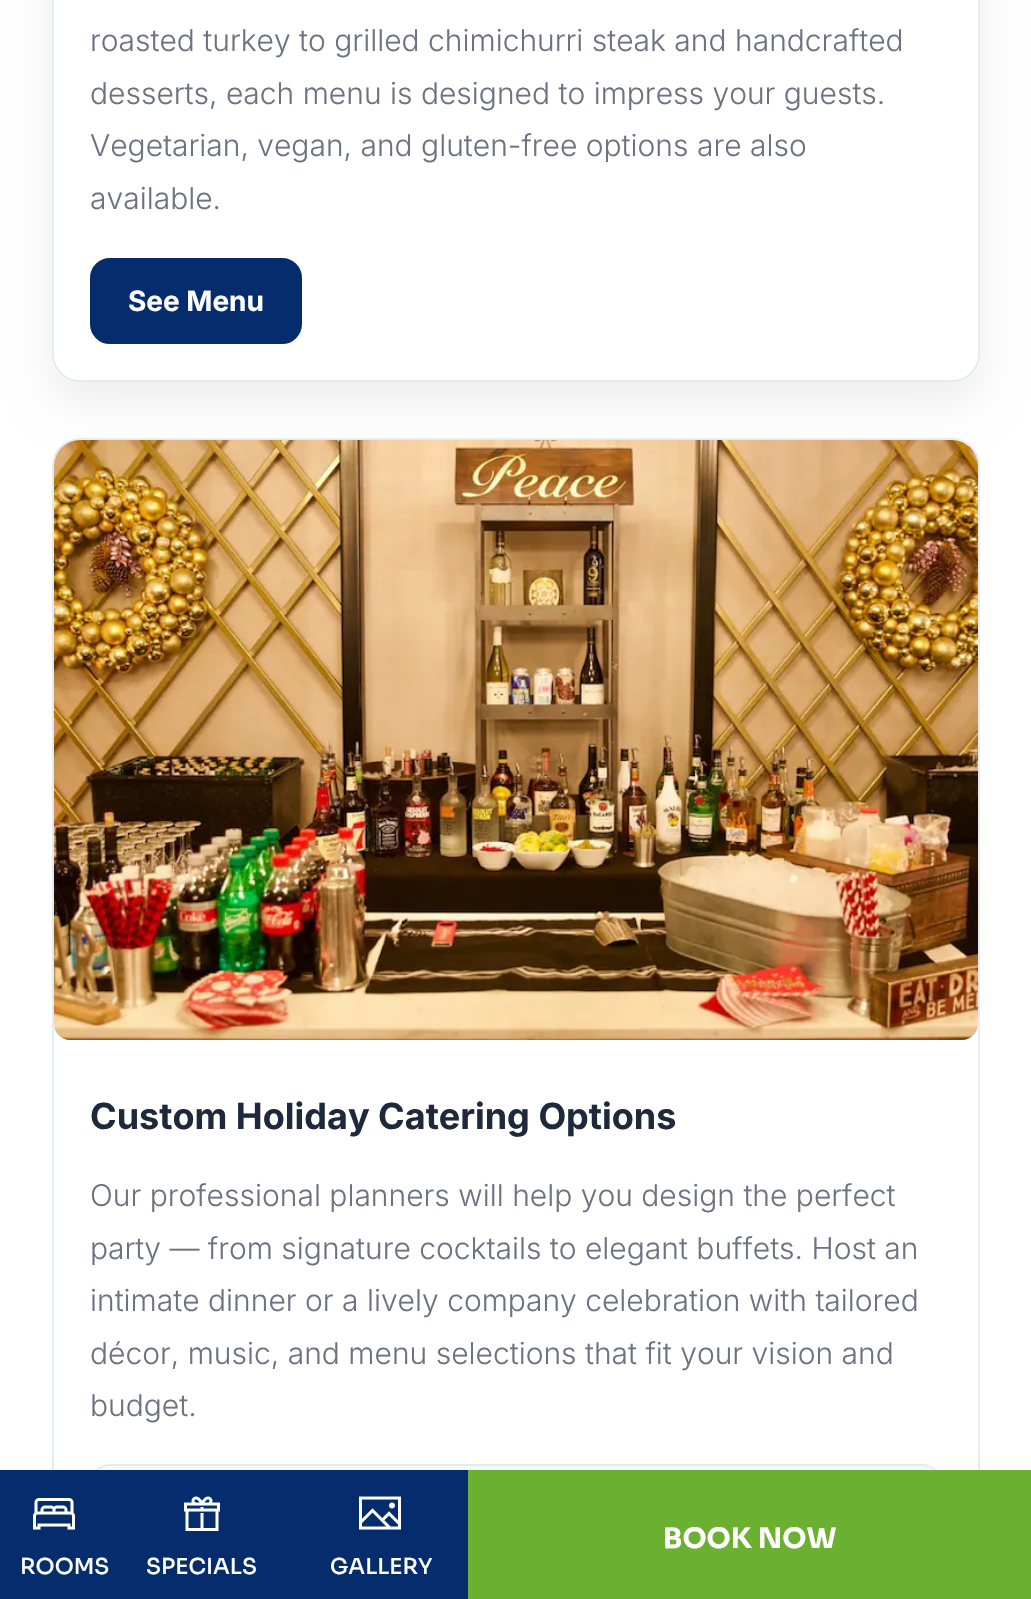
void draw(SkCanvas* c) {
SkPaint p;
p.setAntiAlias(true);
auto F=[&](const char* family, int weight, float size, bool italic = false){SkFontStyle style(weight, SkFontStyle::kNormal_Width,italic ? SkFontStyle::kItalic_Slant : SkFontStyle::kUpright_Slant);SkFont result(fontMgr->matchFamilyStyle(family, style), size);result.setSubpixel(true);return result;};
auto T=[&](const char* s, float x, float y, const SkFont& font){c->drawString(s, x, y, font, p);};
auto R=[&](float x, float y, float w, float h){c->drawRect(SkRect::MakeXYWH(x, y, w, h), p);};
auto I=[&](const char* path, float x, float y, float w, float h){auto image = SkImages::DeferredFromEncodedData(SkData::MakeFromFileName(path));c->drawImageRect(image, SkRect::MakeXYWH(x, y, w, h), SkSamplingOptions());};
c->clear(0xffffffff);
p.setColor(0x12000000);
p.setMaskFilter(SkMaskFilter::MakeBlur(kNormal_SkBlurStyle, 22));
c->drawRoundRect(SkRect::MakeXYWH(52,-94,928,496),28,28,p);
p.setMaskFilter(nullptr);
p.setColor(0xffffffff);
c->drawRoundRect(SkRect::MakeXYWH(53,-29,926,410),27,27,p);
p.setStroke(true);
p.setStrokeWidth(2);
p.setColor(0xffe6ebf2);
c->drawRoundRect(SkRect::MakeXYWH(53,-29,926,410),27,27,p);
auto f1 = F("Inter",300,30);
p.setStroke(false);
p.setColor(0xff6b7280);
T("roasted turkey to grilled chimichurri steak and handcrafted",90,51,f1);
T("desserts, each menu is designed to impress your guests.",90,104,f1);
T("Vegetarian, vegan, and gluten-free options are also",90,156,f1);
T("available.",90,209,f1);
p.setColor(0xff052d6d);
c->drawRoundRect(SkRect::MakeXYWH(91,259,210,84),19,19,p);
p.setStroke(true);
c->drawRoundRect(SkRect::MakeXYWH(91,259,210,84),19,19,p);
auto f2 = F("Inter",700,28);
p.setStroke(false);
p.setColor(0xffffffff);
T("See Menu",128,311,f2);
p.setStroke(true);
p.setColor(0xffe6ebf2);
c->drawRoundRect(SkRect::MakeXYWH(53,439,926,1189),27,27,p);
I("1.png",54,440,924,600);
auto f3 = F("Inter",700,36);
p.setStroke(false);
p.setColor(0xff1e293b);
T("Custom Holiday Catering Options",90,1129,f3);
p.setColor(0xff6b7280);
T("Our professional planners will help you design the perfect",90,1206,f1);
T("party — from signature cocktails to elegant buffets. Host an",90,1259,f1);
T("intimate dinner or a lively company celebration with tailored",90,1311,f1);
T("décor, music, and menu selections that fit your vision and",90,1364,f1);
T("budget.",90,1416,f1);
p.setColor(0xfff7f9fc);
c->drawRoundRect(SkRect::MakeXYWH(91,1465,850,80),19,19,p);
p.setStroke(true);
p.setColor(0xffe6ebf2);
c->drawRoundRect(SkRect::MakeXYWH(91,1465,850,80),19,19,p);
p.setStroke(false);
p.setColor(0xff052d6d);
R(0,1470,468,129);
p.setColor(0xff6bb030);
R(468,1470,563,129);
auto f4 = F("Sora",700,28);
p.setColor(0xffffffff);
T("BOOK NOW",663,1548,f4);
I("2.png",33,1498,42,32);
auto f5 = F("Sora",500,22);
T("ROOMS",20,1574,f5);
I("3.png",184,1496,36,35);
T("SPECIALS",146,1574,f5);
I("4.png",359,1496,42,34);
T("GALLERY",330,1574,f5);
}
